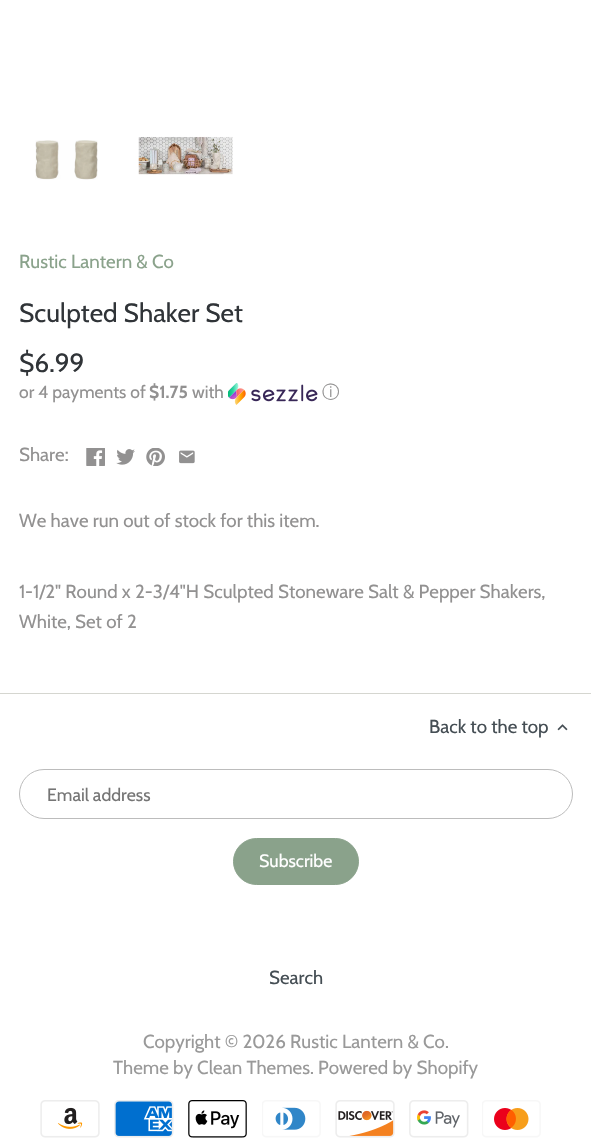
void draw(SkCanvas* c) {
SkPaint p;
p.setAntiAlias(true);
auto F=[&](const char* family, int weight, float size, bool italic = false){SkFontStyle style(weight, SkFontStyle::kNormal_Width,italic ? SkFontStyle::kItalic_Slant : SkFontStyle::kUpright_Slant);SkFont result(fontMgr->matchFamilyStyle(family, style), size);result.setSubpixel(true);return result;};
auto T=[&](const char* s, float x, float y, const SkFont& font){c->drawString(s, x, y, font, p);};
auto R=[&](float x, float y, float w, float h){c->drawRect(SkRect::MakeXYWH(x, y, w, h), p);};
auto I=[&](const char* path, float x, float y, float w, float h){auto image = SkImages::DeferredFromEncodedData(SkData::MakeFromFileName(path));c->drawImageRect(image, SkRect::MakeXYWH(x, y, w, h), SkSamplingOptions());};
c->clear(0xffffffff);
I("1.png",35,140,63,40);
I("2.png",138,136,95,39);
auto f1 = F("Cabin",400,18.75);
p.setColor(0xff8aa28b);
T("Rustic Lantern & Co",19,268,f1);
auto f2 = F("Cabin",400,26.25);
p.setColor(0xff303438);
T("Sculpted Shaker Set",19,322,f2);
T("$6.99",19,372,f2);
auto f3 = F("Cabin",400,17.5);
p.setColor(0xff929191);
T("or 4 payments of",19,398,f3);
auto f4 = F("Cabin",700,17.5);
T("$1.75",149,398,f4);
T("with",192,398,f3);
I("3.png",228,383,90,22);
auto f5 = F("WenQuanYi Zen Hei",500,17.5);
T("ⓘ",322,398,f5);
T("Share:",19,461,f1);
I("4.png",86,448,19,18);
I("5.png",116,449,19,16);
I("6.png",146,448,19,18);
I("7.png",179,450,16,14);
T("We have run out of stock for this item.",19,527,f1);
T("1-1/2\" Round x 2-3/4\"H Sculpted Stoneware Salt & Pepper Shakers,",19,598,f1);
T("White, Set of 2",19,628,f1);
p.setColor(0xffd5d6d0);
R(0,693,591,1);
p.setColor(0xff454e54);
T("Back to the top",429,733,f1);
I("8.png",557,724,11,7);
p.setStroke(true);
p.setStrokeWidth(1);
p.setColor(0xffbcbcbc);
c->drawRoundRect(SkRect::MakeXYWH(19.5,769.5,553,49),24.5,24.5,p);
auto f6 = F("Cabin",400,17.75);
p.setStroke(false);
p.setColor(0xff757575);
T("Email address",47,801,f6);
p.setColor(0xff8aa28b);
c->drawRoundRect(SkRect::MakeXYWH(233.5,838.5,125,46),23,23,p);
p.setStroke(true);
c->drawRoundRect(SkRect::MakeXYWH(233.5,838.5,125,46),23,23,p);
p.setStroke(false);
p.setColor(0xffffffff);
T("Subscribe",259,867,f6);
p.setColor(0xff454e54);
T("Search",269,984,f1);
p.setColor(0xff999999);
T("Copyright © 2026 Rustic Lantern & Co.",143,1048,f1);
T("Theme by Clean Themes. Powered by Shopify",113,1074,f1);
I("9.png",40,1100,60,38);
I("10.png",114,1100,60,38);
I("11.png",188,1100,59,38);
I("12.png",262,1100,59,38);
I("13.png",335,1100,60,38);
I("14.png",409,1100,60,38);
I("15.png",482,1100,59,38);
}
